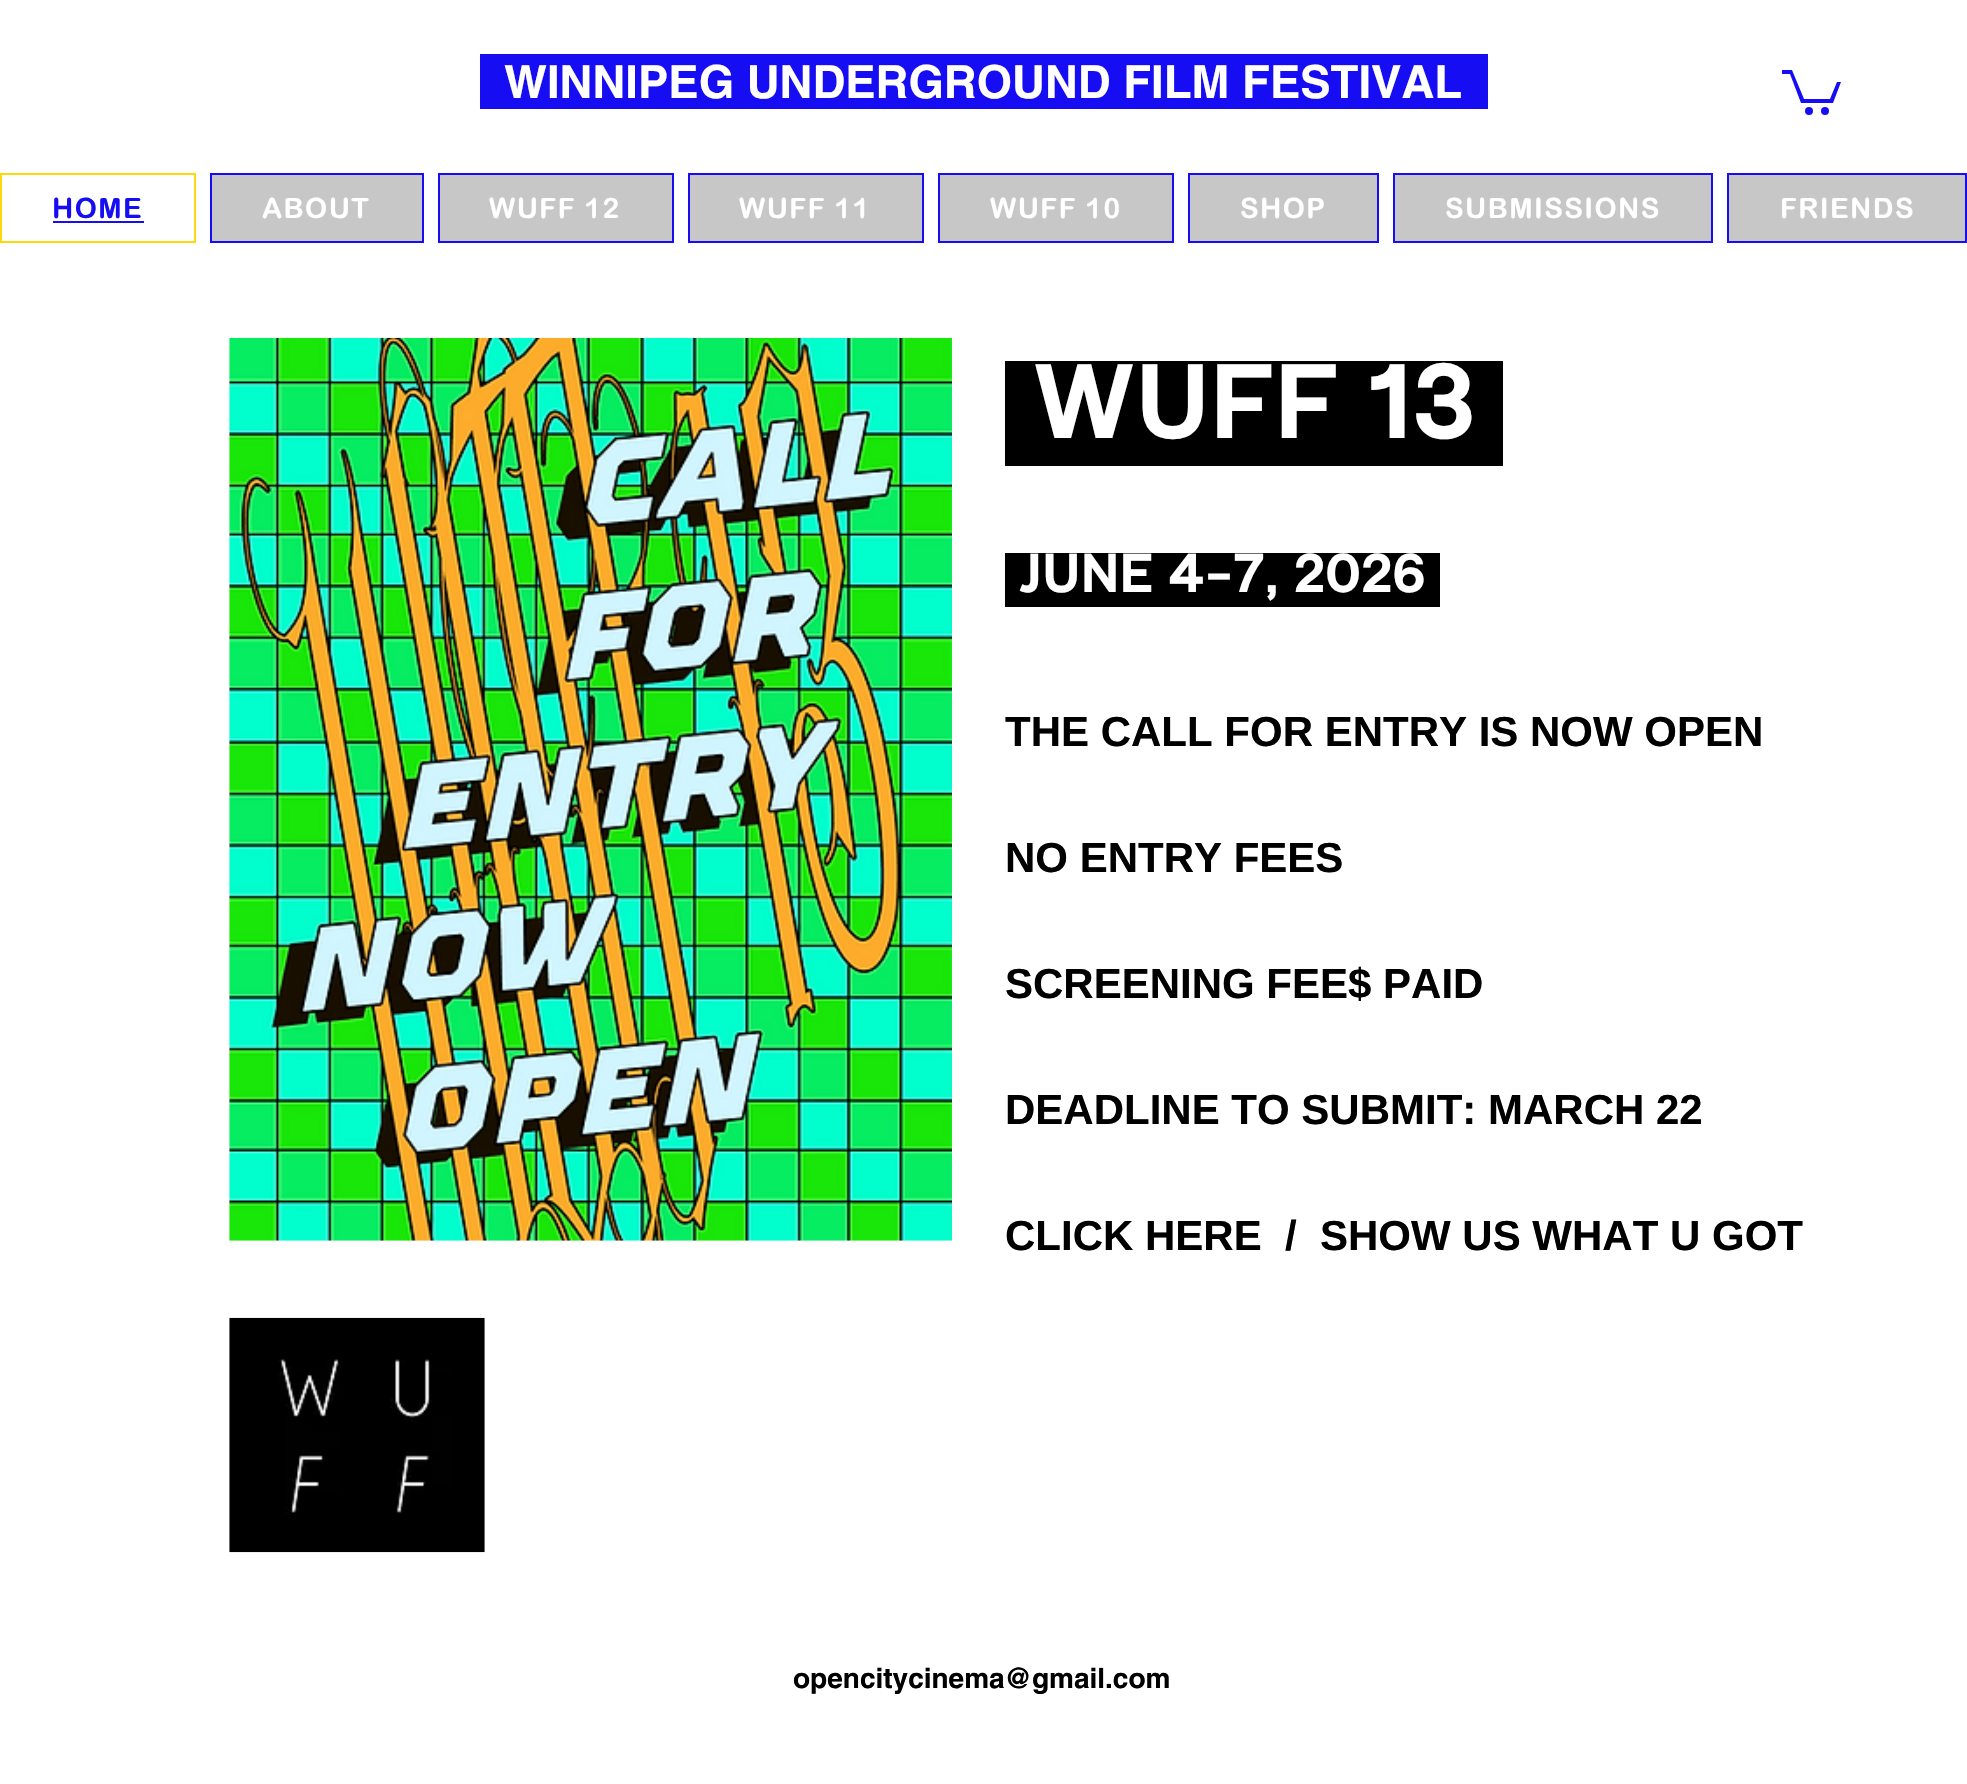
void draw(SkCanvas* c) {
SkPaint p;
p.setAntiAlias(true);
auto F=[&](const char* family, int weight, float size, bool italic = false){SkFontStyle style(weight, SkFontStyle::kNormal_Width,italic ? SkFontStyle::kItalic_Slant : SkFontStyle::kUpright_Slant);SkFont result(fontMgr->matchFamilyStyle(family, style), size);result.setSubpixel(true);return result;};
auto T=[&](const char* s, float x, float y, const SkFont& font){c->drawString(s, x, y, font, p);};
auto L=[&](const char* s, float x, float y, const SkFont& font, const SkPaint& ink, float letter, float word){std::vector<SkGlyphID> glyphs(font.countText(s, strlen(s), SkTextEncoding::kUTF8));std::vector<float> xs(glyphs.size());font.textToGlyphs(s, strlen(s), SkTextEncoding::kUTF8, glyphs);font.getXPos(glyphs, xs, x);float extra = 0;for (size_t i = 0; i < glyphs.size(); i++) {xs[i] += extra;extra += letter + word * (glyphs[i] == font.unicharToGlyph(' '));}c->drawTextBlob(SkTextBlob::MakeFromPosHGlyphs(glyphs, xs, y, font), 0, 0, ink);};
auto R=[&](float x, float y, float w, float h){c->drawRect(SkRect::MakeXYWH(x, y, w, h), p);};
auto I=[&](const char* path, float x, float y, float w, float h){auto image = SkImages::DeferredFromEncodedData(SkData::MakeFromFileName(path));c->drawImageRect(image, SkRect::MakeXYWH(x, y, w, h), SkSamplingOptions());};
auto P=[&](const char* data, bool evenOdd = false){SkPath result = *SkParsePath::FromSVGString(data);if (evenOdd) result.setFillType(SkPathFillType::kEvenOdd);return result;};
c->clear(0xffffffff);
p.setColor(0xff170df2);
R(480,54,1008,55);
auto f1 = F("helvetica",700,45.5);
p.setColor(0xffffffff);
T("WINNIPEG UNDERGROUND FILM FESTIVAL",504,98,f1);
p.setColor(0xff170df2);
c->drawPath(P("M1841 82l-8 21h-32l-11-29h-8v-4h10l12 29h26l7-17"),p);
c->drawCircle(1825,111,4,p);
c->drawCircle(1809,111,4,p);
p.setStroke(true);
p.setStrokeWidth(2);
p.setColor(0xfffdd80d);
c->drawRect(SkRect::MakeXYWH(1,174,194,68),p);
auto f2 = F("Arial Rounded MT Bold",700,28);
p.setStroke(false);
p.setColor(0xff170df2);
L("HOME",52,218,f2,p,1.4,0);
R(53,221,91,2);
p.setColor(0xffc7c7c7);
c->drawRect(SkRect::MakeXYWH(211,174,212,68),p);
p.setStroke(true);
p.setColor(0xff170df2);
c->drawRect(SkRect::MakeXYWH(211,174,212,68),p);
p.setStroke(false);
p.setColor(0xffffffff);
L("ABOUT",262,218,f2,p,1.4,0);
p.setColor(0xffc7c7c7);
c->drawRect(SkRect::MakeXYWH(439,174,234,68),p);
p.setStroke(true);
p.setColor(0xff170df2);
c->drawRect(SkRect::MakeXYWH(439,174,234,68),p);
p.setStroke(false);
p.setColor(0xffffffff);
L("WUFF 12",489,218,f2,p,1.4,0);
p.setColor(0xffc7c7c7);
c->drawRect(SkRect::MakeXYWH(689,174,234,68),p);
p.setStroke(true);
p.setColor(0xff170df2);
c->drawRect(SkRect::MakeXYWH(689,174,234,68),p);
p.setStroke(false);
p.setColor(0xffffffff);
L("WUFF 11",739,218,f2,p,1.4,0);
p.setColor(0xffc7c7c7);
c->drawRect(SkRect::MakeXYWH(939,174,234,68),p);
p.setStroke(true);
p.setColor(0xff170df2);
c->drawRect(SkRect::MakeXYWH(939,174,234,68),p);
p.setStroke(false);
p.setColor(0xffffffff);
L("WUFF 10",990,218,f2,p,1.4,0);
p.setColor(0xffc7c7c7);
c->drawRect(SkRect::MakeXYWH(1189,174,189,68),p);
p.setStroke(true);
p.setColor(0xff170df2);
c->drawRect(SkRect::MakeXYWH(1189,174,189,68),p);
p.setStroke(false);
p.setColor(0xffffffff);
L("SHOP",1240,218,f2,p,1.4,0);
p.setColor(0xffc7c7c7);
c->drawRect(SkRect::MakeXYWH(1394,174,318,68),p);
p.setStroke(true);
p.setColor(0xff170df2);
c->drawRect(SkRect::MakeXYWH(1394,174,318,68),p);
p.setStroke(false);
p.setColor(0xffffffff);
L("SUBMISSIONS",1445,218,f2,p,1.4,0);
p.setColor(0xffc7c7c7);
c->drawRect(SkRect::MakeXYWH(1728,174,238,68),p);
p.setStroke(true);
p.setColor(0xff170df2);
c->drawRect(SkRect::MakeXYWH(1728,174,238,68),p);
p.setStroke(false);
p.setColor(0xffffffff);
L("FRIENDS",1780,218,f2,p,1.4,0);
I("1.png",229,337,723,904);
p.setColor(0xff000000);
R(1005,361,498,105);
auto f3 = F("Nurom",700,105);
p.setColor(0xffffffff);
T("WUFF 13",1033,438,f3);
p.setColor(0xff000000);
R(1005,553,435,54);
auto f4 = F("Nurom",700,54.25);
p.setColor(0xffffffff);
T("JUNE 4-7, 2026",1019,592,f4);
auto f5 = F("Liberation Sans",700,42);
p.setColor(0xff000000);
T("THE CALL FOR ENTRY IS NOW OPEN",1005,746,f5);
T("NO ENTRY FEES",1005,872,f5);
T("SCREENING FEE$ PAID",1005,998,f5);
T("DEADLINE TO SUBMIT: MARCH 22",1005,1124,f5);
T("CLICK HERE  /  SHOW US WHAT U GOT",1005,1250,f5);
I("2.png",229,1317,256,236);
auto f6 = F("helvetica",700,28);
T("opencitycinema@gmail.com",793,1688,f6);
}
